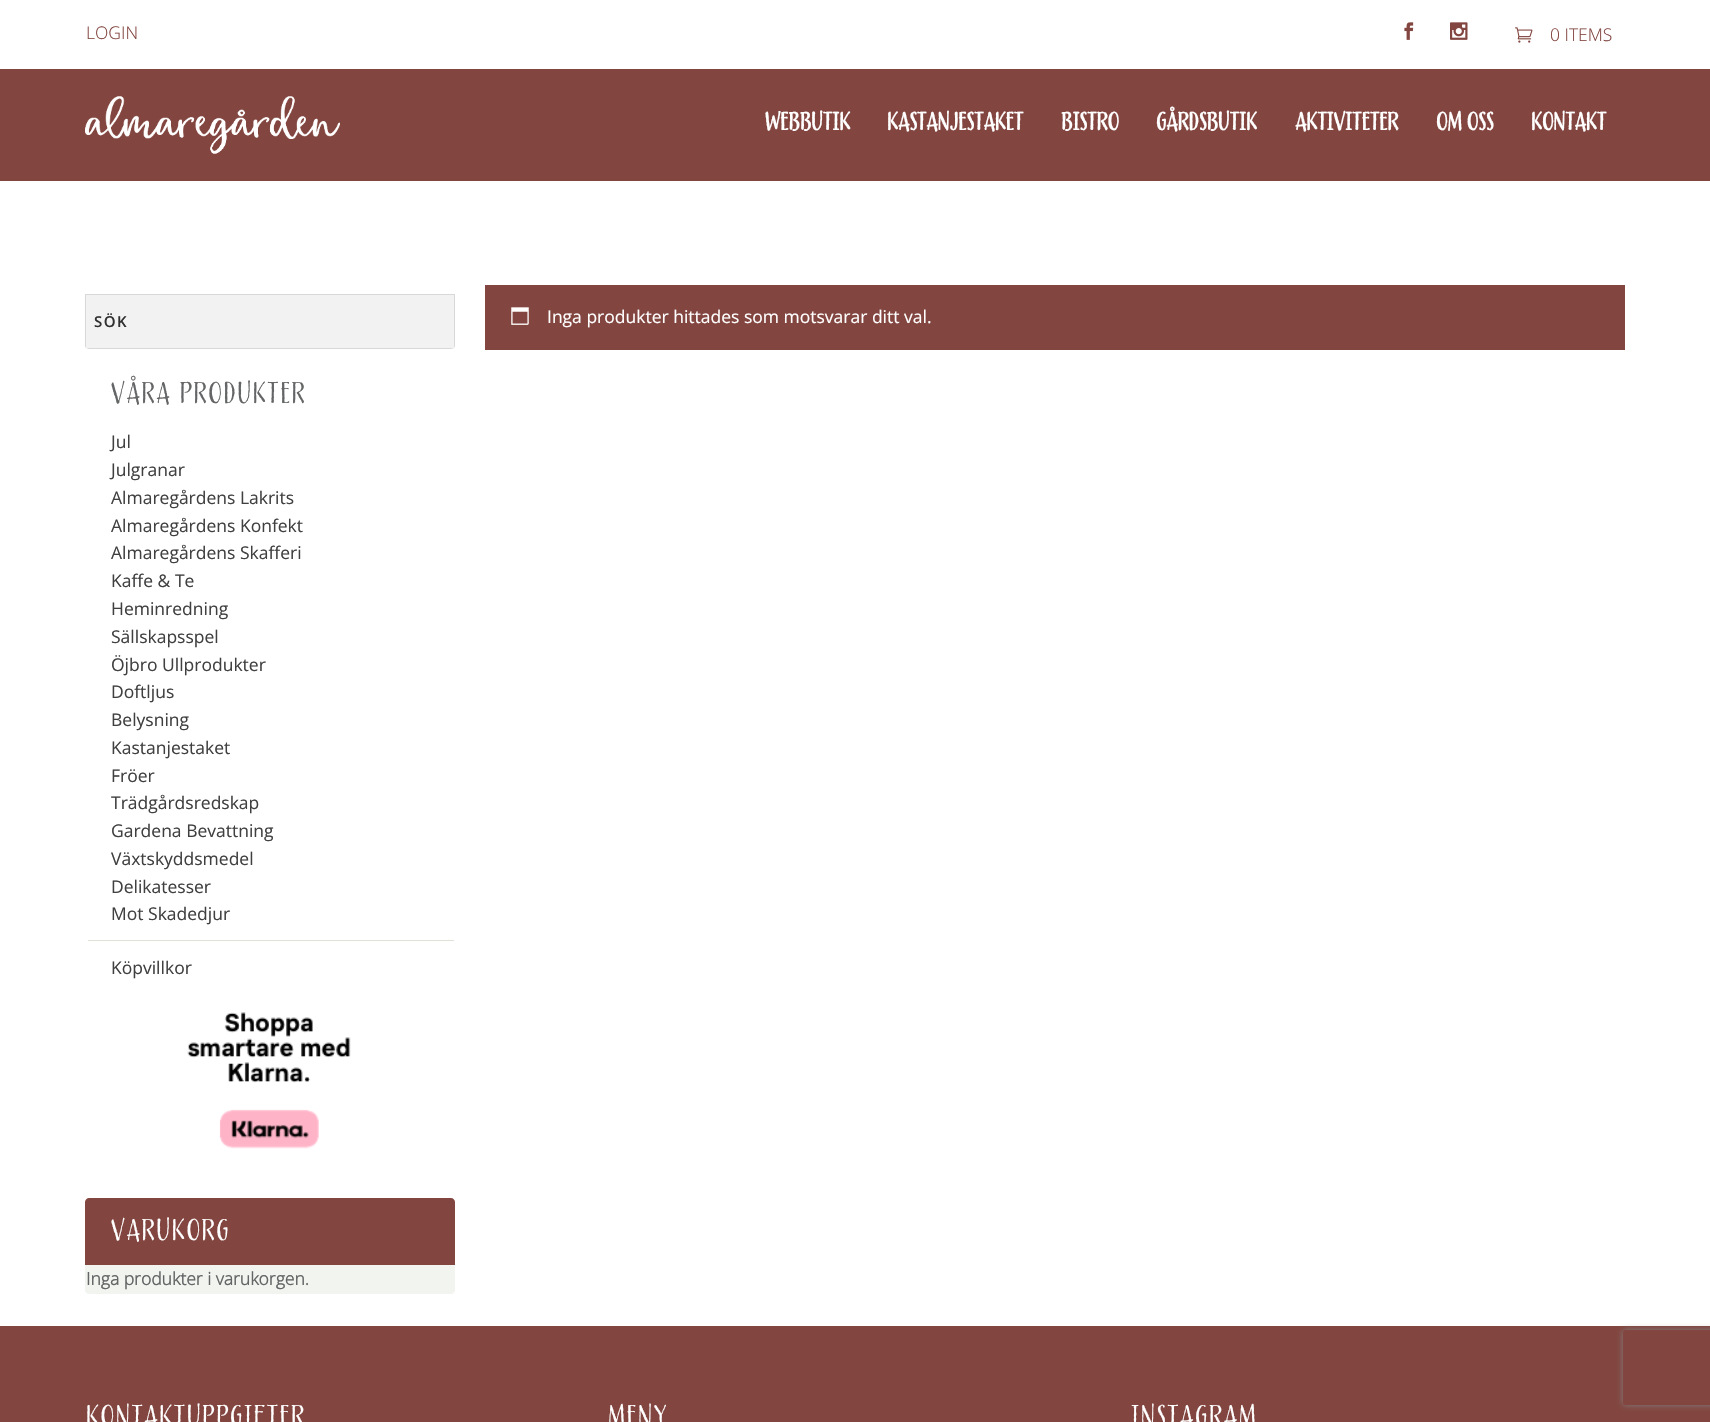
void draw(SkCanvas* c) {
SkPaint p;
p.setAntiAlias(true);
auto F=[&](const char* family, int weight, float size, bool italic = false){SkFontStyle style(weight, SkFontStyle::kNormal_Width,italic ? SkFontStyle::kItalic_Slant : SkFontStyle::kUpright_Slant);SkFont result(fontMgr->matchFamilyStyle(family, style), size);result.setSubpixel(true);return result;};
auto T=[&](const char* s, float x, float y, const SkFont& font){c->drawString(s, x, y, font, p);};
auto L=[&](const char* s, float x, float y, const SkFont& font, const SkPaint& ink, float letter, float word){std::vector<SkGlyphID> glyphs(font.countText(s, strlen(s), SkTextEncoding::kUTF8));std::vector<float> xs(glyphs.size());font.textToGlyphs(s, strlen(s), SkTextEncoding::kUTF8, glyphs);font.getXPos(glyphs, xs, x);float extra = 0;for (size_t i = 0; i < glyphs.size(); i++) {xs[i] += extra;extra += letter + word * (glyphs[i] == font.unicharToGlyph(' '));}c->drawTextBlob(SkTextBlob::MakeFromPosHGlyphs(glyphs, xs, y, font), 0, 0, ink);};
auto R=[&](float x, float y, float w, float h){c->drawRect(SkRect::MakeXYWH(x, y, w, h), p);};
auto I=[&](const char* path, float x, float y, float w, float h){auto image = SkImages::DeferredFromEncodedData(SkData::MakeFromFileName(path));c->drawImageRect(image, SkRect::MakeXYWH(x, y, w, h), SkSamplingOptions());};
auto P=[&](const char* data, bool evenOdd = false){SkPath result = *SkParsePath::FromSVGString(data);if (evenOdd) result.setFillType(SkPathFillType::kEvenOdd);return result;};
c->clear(0xffffffff);
auto f1 = F("Open Sans",300,17.5);
p.setColor(0xff82453f);
T("LOGIN",86,39,f1);
I("1.png",1404,22,10,18);
I("2.png",1450,22,18,18);
I("3.png",1515,27,18,16);
T("0 ITEMS",1550,41,f1);
R(0,69,1710,112);
I("4.png",85,96,255,58);
auto f2 = F("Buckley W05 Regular",700,25);
p.setColor(0xffffffff);
T("WEBBUTIK",765,130,f2);
T("KASTANJESTAKET",887,130,f2);
T("BISTRO",1061,130,f2);
T("GÅRDSBUTIK",1156,130,f2);
T("AKTIVITETER",1295,130,f2);
T("OM OSS",1436,130,f2);
T("KONTAKT",1531,130,f2);
p.setColor(0xfff2f2f2);
c->drawPath(P("M85 294h370v51c0 2-2 4-4 4h-362c-2 0-4-2-4-4z"),p);
p.setColor(0xffd8d8d8);
c->drawPath(P("M86 295h368v53c1-1 1-2 1-3v-51h-370v51c0 1 0 2 1 3zm365 54l3-1h-368l3 1z",true),p);
auto f3 = F("Open Sans",600,15);
p.setColor(0xff313131);
L("SÖK",94,327,f3,p,1.5,0);
auto f4 = F("Buckley W05 Regular",400,30);
p.setColor(0xff646566);
L("VÅRA PRODUKTER",111,403,f4,p,1.5,1);
auto f5 = F("Open Sans",400,17.5);
p.setColor(0xff404040);
T("Jul",111,448,f5);
T("Julgranar",111,476,f5);
T("Almaregårdens Lakrits",111,504,f5);
T("Almaregårdens Konfekt",111,532,f5);
T("Almaregårdens Skafferi",111,559,f5);
T("Kaffe & Te",111,587,f5);
T("Heminredning",111,615,f5);
T("Sällskapsspel",111,643,f5);
T("Öjbro Ullprodukter",111,671,f5);
T("Doftljus",111,698,f5);
T("Belysning",111,726,f5);
T("Kastanjestaket",111,754,f5);
T("Fröer",111,782,f5);
T("Trädgårdsredskap",111,809,f5);
T("Gardena Bevattning",111,837,f5);
T("Växtskyddsmedel",111,865,f5);
T("Delikatesser",111,893,f5);
T("Mot Skadedjur",111,920,f5);
p.setColor(0xffdee2d6);
R(88,940,366,1);
p.setColor(0xff404040);
T("Köpvillkor",111,974,f5);
I("5.png",187,1012,164,137);
p.setColor(0xff82453f);
c->drawPath(P("M89 1198h362c2 0 4 2 4 4v63h-370v-63c0-2 2-4 4-4z"),p);
p.setColor(0xffffffff);
L("VARUKORG",111,1240,f4,p,1.5,0);
p.setColor(0xfff2f4ef);
c->drawPath(P("M85 1265h370v25c0 2-2 4-4 4h-362c-2 0-4-2-4-4z"),p);
auto f6 = F("Open Sans",700,17.5);
p.setColor(0xff646566);
T("Inga produkter i varukorgen.",86,1285,f6);
p.setColor(0xff82453f);
R(485,285,1140,65);
I("6.png",511,307,18,18);
p.setColor(0xffffffff);
T("Inga produkter hittades som motsvarar ditt val.",547,323,f5);
p.setColor(0xff82453f);
R(0,1326,1710,96);
p.setColor(0xffffffff);
L("KONTAKTUPPGIFTER",86,1426,f4,p,1.5,0);
L("MENY",608,1426,f4,p,1.5,0);
L("INSTAGRAM",1131,1426,f4,p,1.5,0);
c->save();
c->clipPath(P("M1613 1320h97v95h-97zm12.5 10h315c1.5 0 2.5 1 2.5 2.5v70c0 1.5-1 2.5-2.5 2.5h-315c-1.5 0-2.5-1-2.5-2.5v-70c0-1.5 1-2.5 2.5-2.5z",true),true);
p.setColor(0xff808080);
p.setMaskFilter(SkMaskFilter::MakeBlur(kNormal_SkBlurStyle, 3));
c->drawRoundRect(SkRect::MakeXYWH(1623,1330,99,75),2.5,2.5,p);
p.setMaskFilter(nullptr);
c->restore();
}
